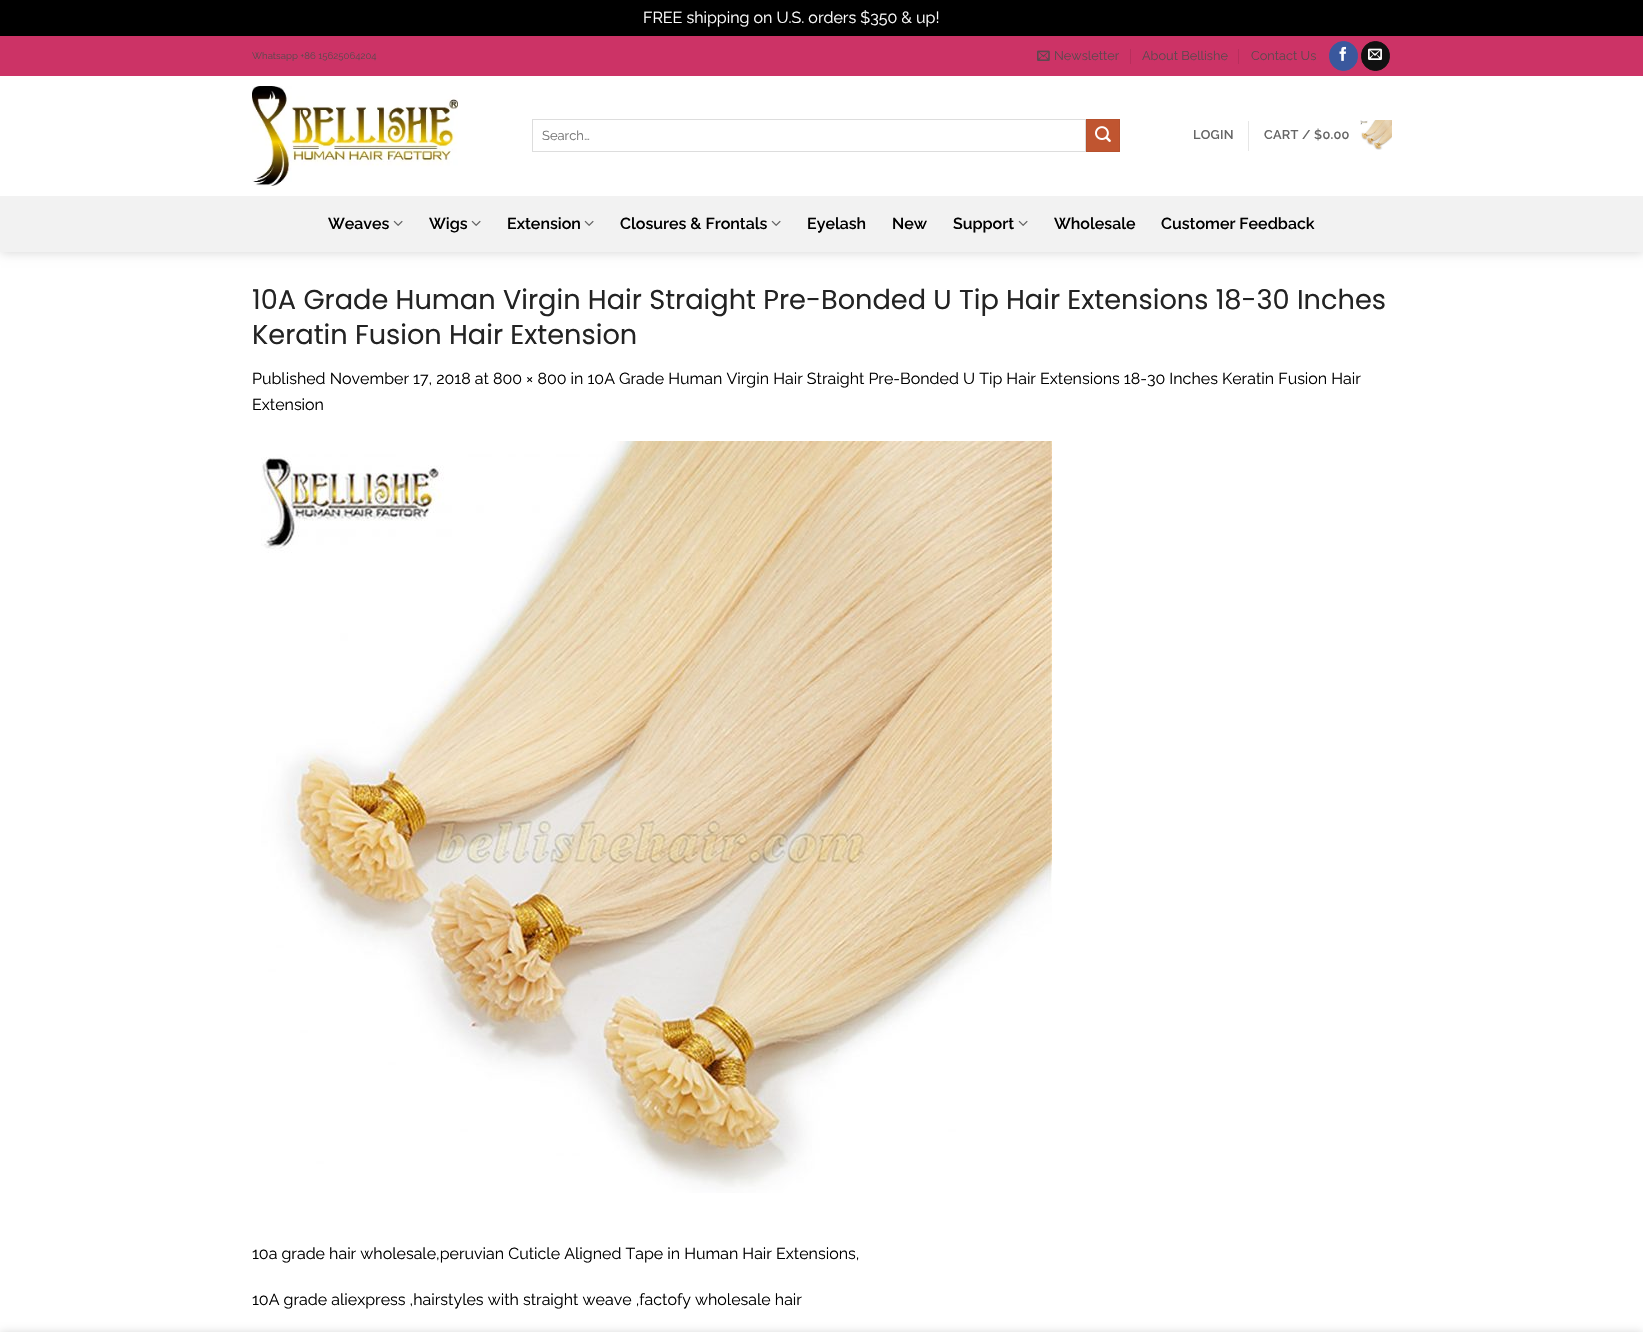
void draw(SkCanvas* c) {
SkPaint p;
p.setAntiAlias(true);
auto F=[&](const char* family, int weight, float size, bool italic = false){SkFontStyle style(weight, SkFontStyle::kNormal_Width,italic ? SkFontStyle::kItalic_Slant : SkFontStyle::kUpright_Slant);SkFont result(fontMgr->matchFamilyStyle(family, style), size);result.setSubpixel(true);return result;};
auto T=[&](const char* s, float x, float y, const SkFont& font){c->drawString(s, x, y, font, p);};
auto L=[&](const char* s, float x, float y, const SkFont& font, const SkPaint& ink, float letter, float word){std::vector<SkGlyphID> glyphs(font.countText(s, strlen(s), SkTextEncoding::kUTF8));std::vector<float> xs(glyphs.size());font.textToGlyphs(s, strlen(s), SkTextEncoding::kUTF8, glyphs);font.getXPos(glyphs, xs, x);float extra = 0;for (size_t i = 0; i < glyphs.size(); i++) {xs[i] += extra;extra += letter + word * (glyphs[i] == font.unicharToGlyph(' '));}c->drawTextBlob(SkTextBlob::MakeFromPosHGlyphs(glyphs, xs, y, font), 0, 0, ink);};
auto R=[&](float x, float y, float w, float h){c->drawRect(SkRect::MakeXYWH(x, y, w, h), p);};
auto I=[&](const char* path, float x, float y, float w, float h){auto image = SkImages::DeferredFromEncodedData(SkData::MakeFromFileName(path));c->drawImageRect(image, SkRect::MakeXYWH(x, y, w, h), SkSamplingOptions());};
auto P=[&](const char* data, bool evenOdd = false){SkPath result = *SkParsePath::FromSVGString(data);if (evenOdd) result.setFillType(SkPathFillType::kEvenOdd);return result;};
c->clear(0xffffffff);
p.setColor(0xff000000);
R(0,0,1643,36);
auto f1 = F("Raleway",400,16);
p.setColor(0xffffffff);
T("FREE shipping on U.S. orders $350 & up!",643,23,f1);
c->save();
c->clipPath(P("M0 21h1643v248h-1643zm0 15h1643v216h-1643z",true),true);
p.setColor(0x26000000);
p.setMaskFilter(SkMaskFilter::MakeBlur(kNormal_SkBlurStyle, 5));
c->drawRect(SkRect::MakeXYWH(1,37,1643,216),p);
p.setMaskFilter(nullptr);
c->restore();
p.setColor(0xffcc3366);
R(0,36,1643,40);
auto f2 = F("Raleway",400,9.6);
p.setColor(0xff5e474e);
T("Whatsapp +86 15625064204",252,59,f2);
I("1.png",1037,50,13,11);
auto f3 = F("Raleway",400,12.75);
T("Newsletter",1054,60,f3);
p.setColor(0xffb82e5c);
R(1130,49,1,15);
p.setColor(0xff5e474e);
T("About Bellishe",1142,60,f3);
p.setColor(0xffb82e5c);
R(1238,49,1,15);
p.setColor(0xff5e474e);
T("Contact Us",1251,60,f3);
p.setColor(0xff3a589d);
c->drawRoundRect(SkRect::MakeXYWH(1329.5,41.5,28,29),14,14,p);
p.setStroke(true);
p.setStrokeWidth(1);
c->drawRoundRect(SkRect::MakeXYWH(1329.5,41.5,28,29),14,14,p);
I("2.png",1339,46,7,15);
p.setStroke(false);
p.setColor(0xff111111);
c->drawRoundRect(SkRect::MakeXYWH(1361.5,41.5,28,29),14,14,p);
p.setStroke(true);
c->drawRoundRect(SkRect::MakeXYWH(1361.5,41.5,28,29),14,14,p);
I("3.png",1368,48,14,12);
I("4.png",252,86,206,100);
p.setColor(0xffdddddd);
c->drawRect(SkRect::MakeXYWH(532.5,119.5,553,32),p);
auto f4 = F("Raleway",400,13);
p.setStroke(false);
p.setColor(0xff757575);
T("Search…",542,140,f4);
p.setColor(0xffc05530);
c->drawRect(SkRect::MakeXYWH(1086.5,119.5,33,32),p);
p.setStroke(true);
p.setColor(0xffb6512e);
c->drawRect(SkRect::MakeXYWH(1086.5,119.5,33,32),p);
I("5.png",1095,126,16,16);
auto f5 = F("Raleway",600,12.75);
p.setStroke(false);
p.setColor(0xff656565);
L("LOGIN",1193,139,f5,p,.25,0);
p.setColor(0xffe6e6e6);
R(1248,121,1,30);
p.setColor(0xff656565);
L("CART / $0.00",1264,139,f5,p,.25,0);
I("6.png",1360,120,32,30);
p.setColor(0xfff2f2f2);
R(0,196,1643,56);
auto f6 = F("Raleway",600,16);
p.setColor(0xff000000);
T("Weaves",328,229,f6);
I("7.png",393,220,10,6);
T("Wigs",429,229,f6);
I("7.png",471,220,10,6);
T("Extension",507,229,f6);
I("7.png",584,220,10,6);
T("Closures & Frontals",620,229,f6);
I("7.png",771,220,10,6);
T("Eyelash",807,229,f6);
T("New",892,229,f6);
T("Support",953,229,f6);
I("7.png",1018,220,10,6);
T("Wholesale",1054,229,f6);
T("Customer Feedback",1161,229,f6);
auto f7 = F("Poppins",400,27.2);
p.setColor(0xff232323);
T("10A Grade Human Virgin Hair Straight Pre-Bonded U Tip Hair Extensions 18-30 Inches",252,309,f7);
T("Keratin Fusion Hair Extension",252,344,f7);
p.setColor(0xff000000);
T("Published November 17, 2018 at 800 × 800 in 10A Grade Human Virgin Hair Straight Pre-Bonded U Tip Hair Extensions 18-30 Inches Keratin Fusion Hair",252,384,f1);
T("Extension",252,410,f1);
I("8.png",261,441,791,752);
T("10a grade hair wholesale,peruvian Cuticle Aligned Tape in Human Hair Extensions,",252,1259,f1);
T("10A grade aliexpress ,hairstyles with straight weave ,factofy wholesale hair",252,1305,f1);
p.setColor(0x24000000);
p.setMaskFilter(SkMaskFilter::MakeBlur(kNormal_SkBlurStyle, 4.5));
c->drawRect(SkRect::MakeXYWH(0,1332,1643,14),p);
p.setMaskFilter(nullptr);
}
